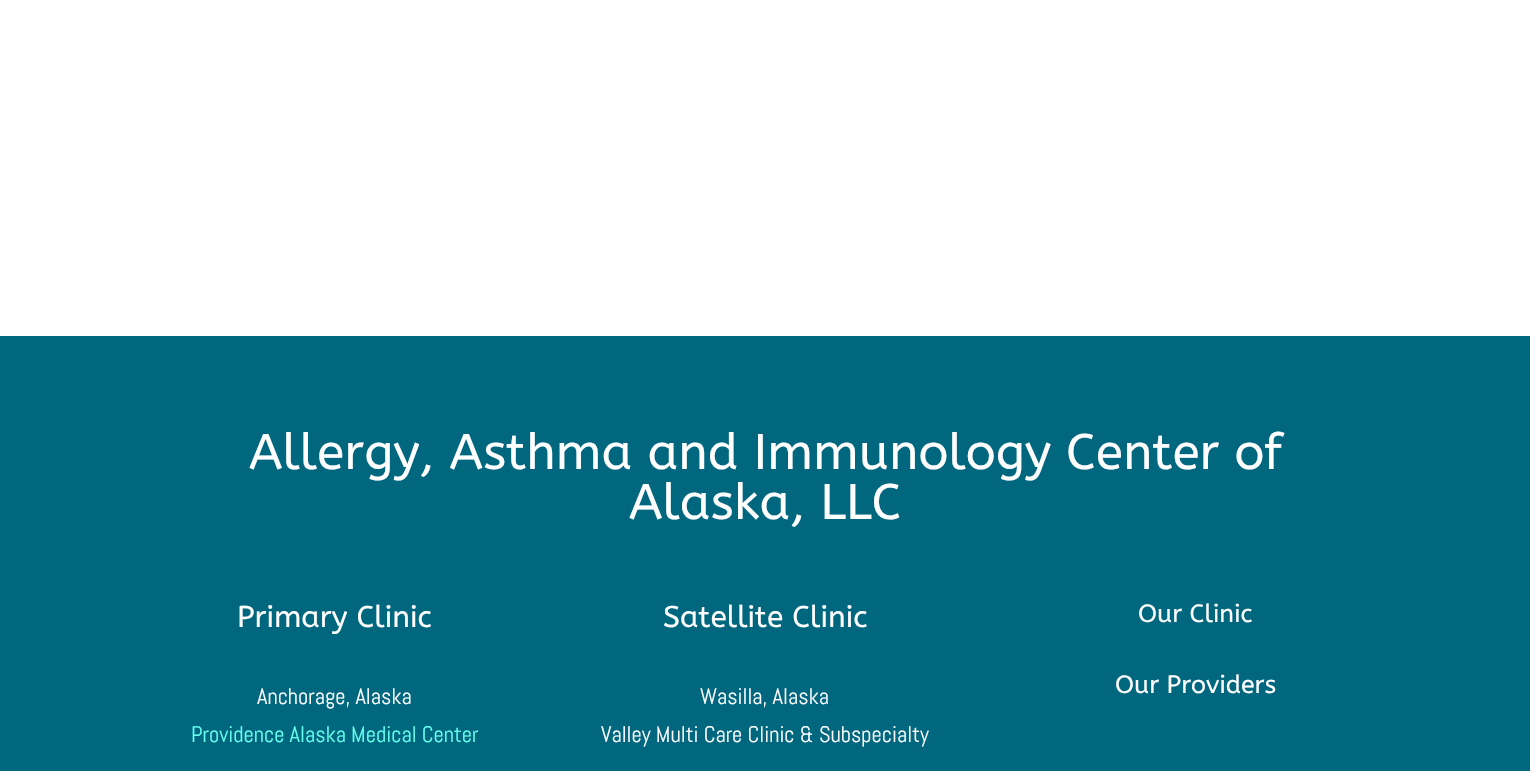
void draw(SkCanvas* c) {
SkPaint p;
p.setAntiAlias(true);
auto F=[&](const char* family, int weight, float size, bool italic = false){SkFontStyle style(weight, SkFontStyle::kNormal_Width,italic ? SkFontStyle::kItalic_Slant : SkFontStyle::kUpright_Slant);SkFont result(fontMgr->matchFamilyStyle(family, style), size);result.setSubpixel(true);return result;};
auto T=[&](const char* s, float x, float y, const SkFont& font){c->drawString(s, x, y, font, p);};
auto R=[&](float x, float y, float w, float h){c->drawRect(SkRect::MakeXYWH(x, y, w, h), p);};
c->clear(0xff00677f);
p.setColor(0xffffffff);
R(0,0,1530,336);
auto f1 = F("ABeeZee",400,50);
T("Allergy, Asthma and Immunology Center of",249,469,f1);
T("Alaska, LLC",629,519,f1);
auto f2 = F("ABeeZee",400,30);
T("Primary Clinic",237,627,f2);
auto f3 = F("Abel",400,22.5);
T("Anchorage, Alaska",257,704,f3);
p.setColor(0xff66ffed);
T("Providence Alaska Medical Center",191,742,f3);
p.setColor(0xffffffff);
T("Satellite Clinic",663,627,f2);
T("Wasilla, Alaska",700,704,f3);
T("Valley Multi Care Clinic & Subspecialty",601,742,f3);
auto f4 = F("ABeeZee",400,25);
T("Our Clinic",1138,622,f4);
T("Our Providers",1115,693,f4);
}
